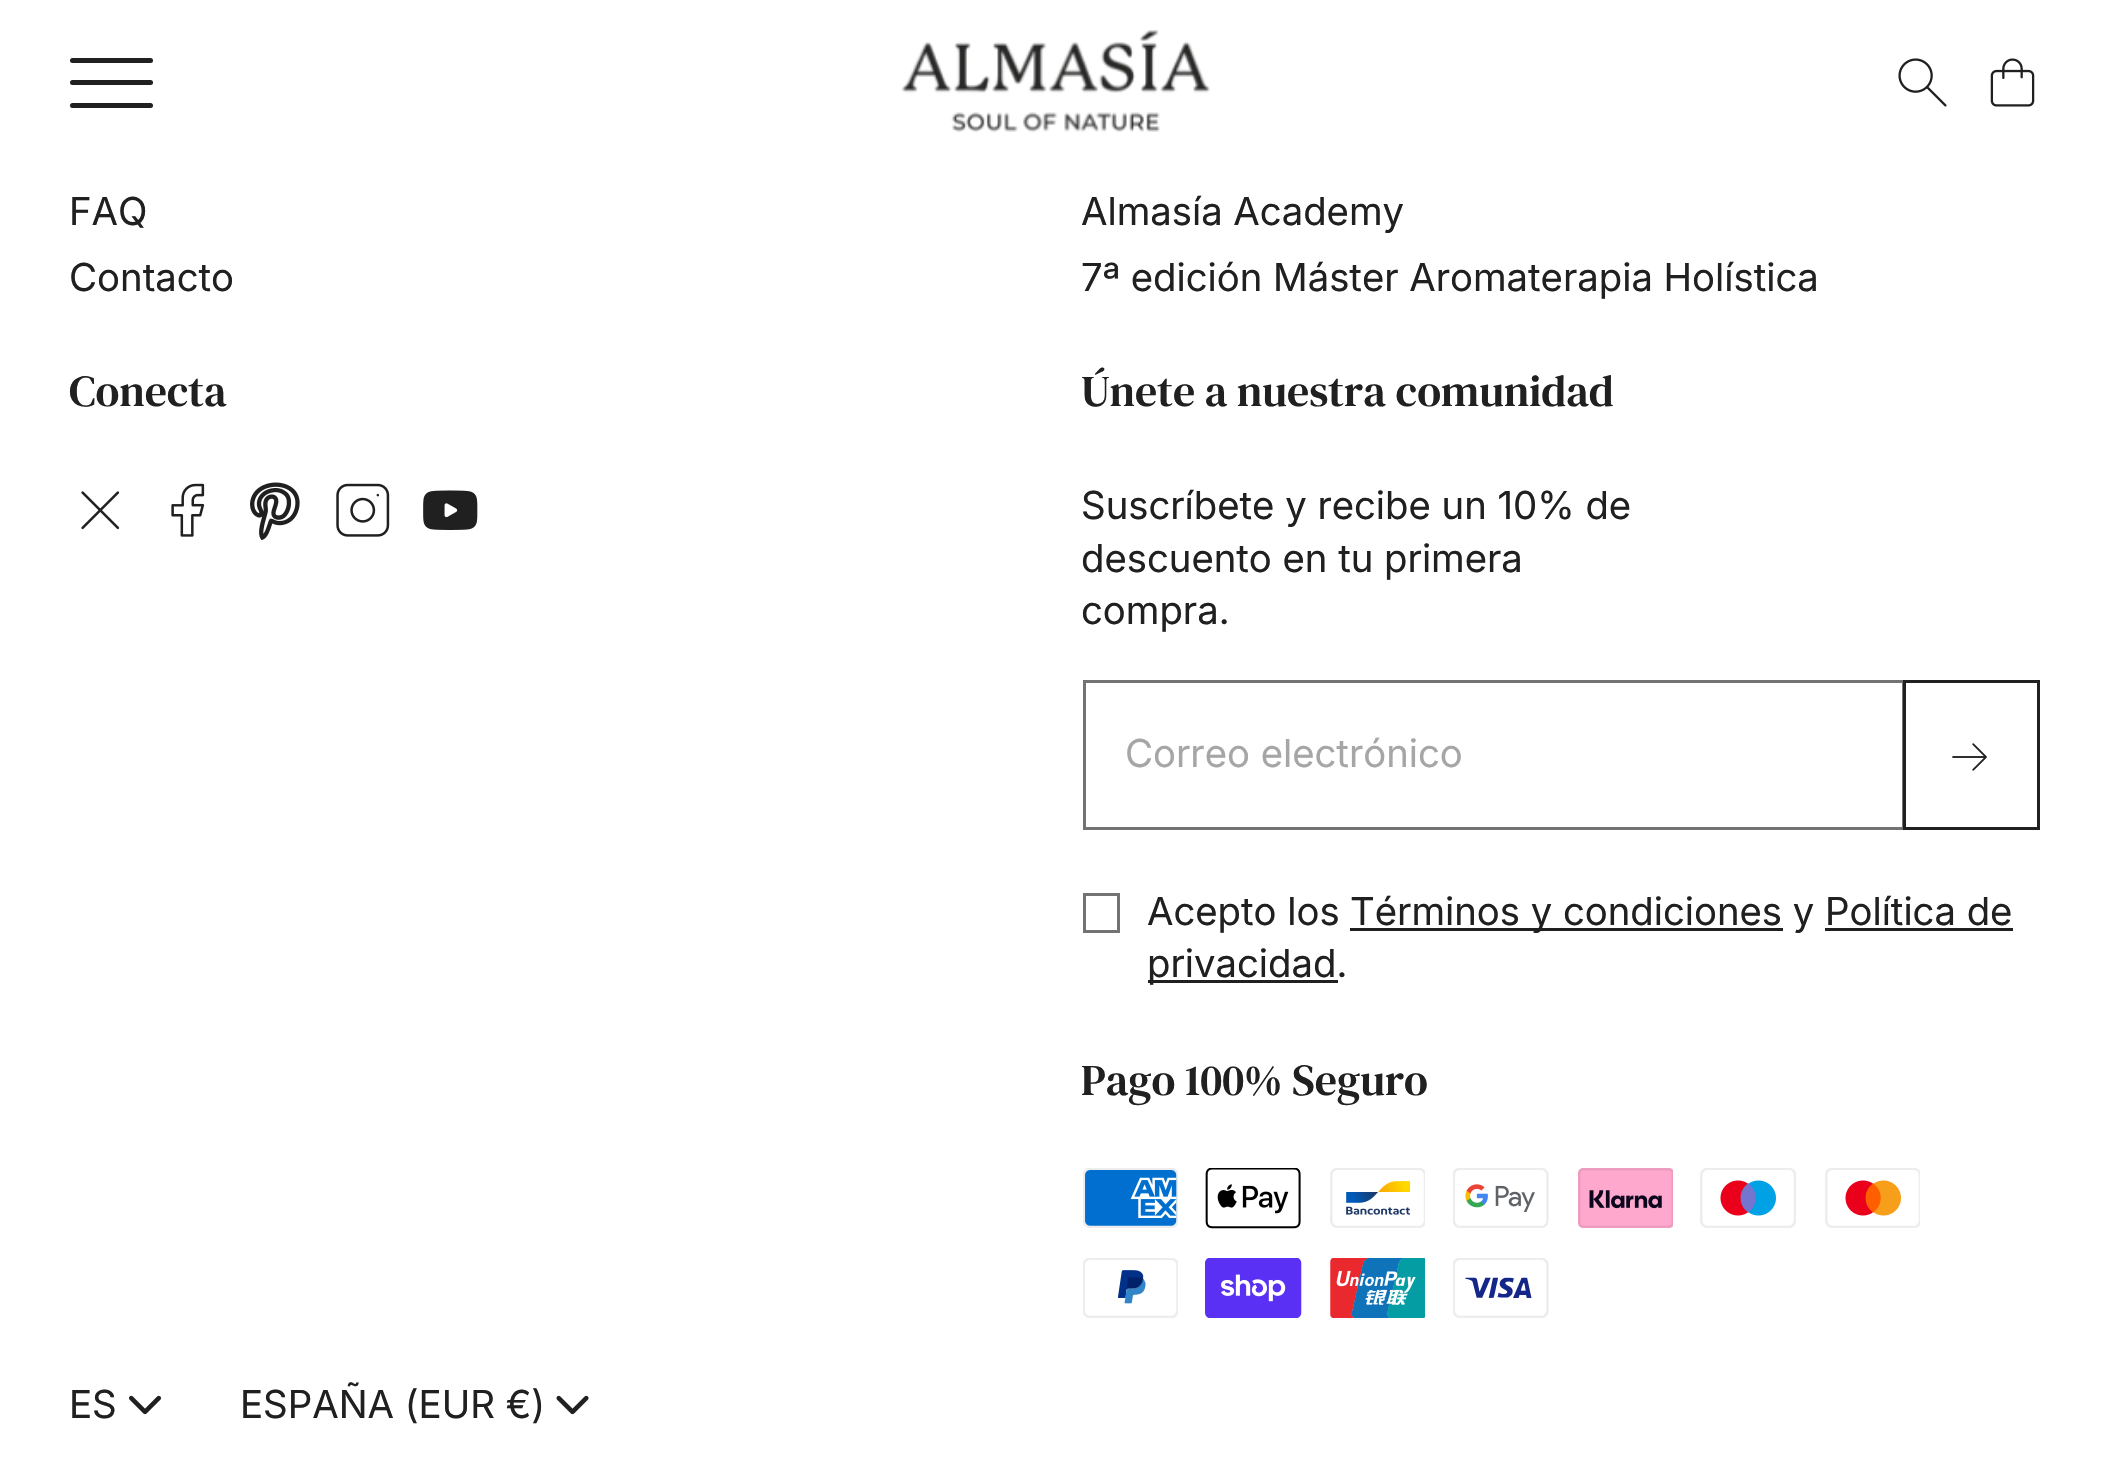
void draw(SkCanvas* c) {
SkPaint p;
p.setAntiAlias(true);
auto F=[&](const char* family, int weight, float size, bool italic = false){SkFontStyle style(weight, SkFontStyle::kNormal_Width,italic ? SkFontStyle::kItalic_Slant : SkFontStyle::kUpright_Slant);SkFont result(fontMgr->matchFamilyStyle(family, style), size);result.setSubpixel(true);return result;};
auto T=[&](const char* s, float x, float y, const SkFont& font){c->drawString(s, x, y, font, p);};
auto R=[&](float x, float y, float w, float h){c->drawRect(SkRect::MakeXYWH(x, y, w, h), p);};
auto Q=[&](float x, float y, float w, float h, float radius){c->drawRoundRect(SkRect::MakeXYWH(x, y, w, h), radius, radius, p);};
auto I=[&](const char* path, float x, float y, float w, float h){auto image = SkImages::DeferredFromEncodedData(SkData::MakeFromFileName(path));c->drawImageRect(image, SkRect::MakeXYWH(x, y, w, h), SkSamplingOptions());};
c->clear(0xffffffff);
p.setColor(0xff202020);
Q(70,58,83,5,2.5);
Q(70,80,83,5,2.5);
Q(70,103,83,5,2.5);
I("1.png",901,30,309,102);
I("2.png",1898,58,49,49);
I("3.png",1990,58,45,49);
auto f1 = F("Inter",400,38.5);
T("FAQ",69,225,f1);
T("Contacto",69,291,f1);
T("Almasía Academy",1081,225,f1);
T("7ª edición Máster Aromaterapia Holística",1081,291,f1);
auto f2 = F("DM Serif Text",400,44);
T("Conecta",69,406,f2);
I("4.png",81,491,39,39);
I("5.png",171,483,34,54);
I("6.png",250,482,50,58);
I("7.png",336,483,54,54);
I("8.png",423,490,55,40);
T("Únete a nuestra comunidad",1081,406,f2);
T("Suscríbete y recibe un 10% de",1081,519,f1);
T("descuento en tu primera",1081,572,f1);
T("compra.",1081,624,f1);
p.setStroke(true);
p.setStrokeWidth(3);
p.setColor(0xff737373);
c->drawRect(SkRect::MakeXYWH(1084.5,681.5,819,147),p);
p.setStroke(false);
p.setColor(0xffa6a6a6);
T("Correo electrónico",1125,767,f1);
p.setStroke(true);
p.setColor(0xff202020);
c->drawRect(SkRect::MakeXYWH(1904.5,681.5,134,147),p);
I("9.png",1952,743,35,28);
p.setColor(0xff737373);
c->drawRect(SkRect::MakeXYWH(1084.5,894.5,34,37),p);
p.setStroke(false);
p.setColor(0xff202020);
T("Acepto los",1147,925,f1);
R(1350,928,433,3);
T("Términos y condiciones y Política de",1350,925,f1);
R(1148,980,190,3);
T("privacidad.",1147,977,f1);
R(1825,928,188,3);
T("Pago 100% Seguro",1081,1095,f2);
I("10.png",1083,1168,95,60);
I("11.png",1205,1168,96,61);
I("12.png",1330,1168,95,60);
I("13.png",1453,1168,96,60);
I("14.png",1578,1168,95,60);
I("15.png",1700,1168,96,60);
I("16.png",1825,1168,95,60);
I("17.png",1083,1258,95,60);
I("18.png",1205,1258,97,60);
I("19.png",1330,1258,95,60);
I("20.png",1453,1258,96,60);
T("ES",69,1418,f1);
I("21.png",129,1395,32,20);
T("ESPAÑA (EUR €)",240,1418,f1);
I("22.png",556,1395,33,20);
}
